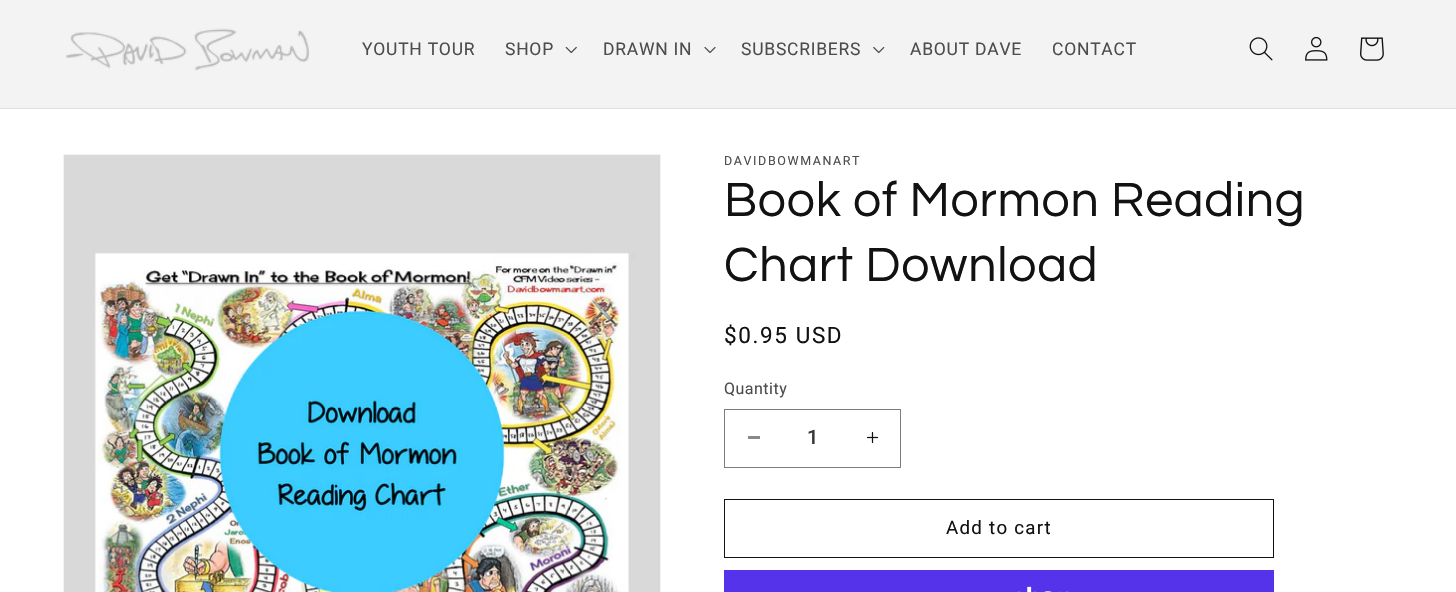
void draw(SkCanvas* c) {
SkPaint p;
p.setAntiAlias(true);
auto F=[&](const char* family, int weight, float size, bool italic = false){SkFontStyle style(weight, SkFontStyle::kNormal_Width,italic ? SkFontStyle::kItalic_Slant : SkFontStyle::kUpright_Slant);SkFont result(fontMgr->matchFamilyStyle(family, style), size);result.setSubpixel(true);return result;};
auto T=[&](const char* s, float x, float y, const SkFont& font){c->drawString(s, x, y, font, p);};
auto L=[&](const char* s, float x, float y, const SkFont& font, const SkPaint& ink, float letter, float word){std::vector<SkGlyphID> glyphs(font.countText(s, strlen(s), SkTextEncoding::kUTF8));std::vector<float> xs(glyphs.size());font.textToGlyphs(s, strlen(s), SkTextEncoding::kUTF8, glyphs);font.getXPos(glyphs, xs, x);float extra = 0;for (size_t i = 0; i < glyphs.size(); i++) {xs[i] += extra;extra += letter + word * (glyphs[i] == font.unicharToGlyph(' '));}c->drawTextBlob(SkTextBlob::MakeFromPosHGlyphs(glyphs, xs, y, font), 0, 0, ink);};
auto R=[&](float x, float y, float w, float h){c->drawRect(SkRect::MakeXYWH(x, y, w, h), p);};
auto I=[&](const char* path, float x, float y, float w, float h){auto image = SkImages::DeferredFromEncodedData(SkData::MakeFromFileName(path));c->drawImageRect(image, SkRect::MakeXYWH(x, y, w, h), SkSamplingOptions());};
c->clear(0xffffffff);
p.setColor(0xfff3f3f3);
R(0,0,1456,108);
p.setColor(0xffe1e1e1);
R(0,108,1456,1);
I("1.png",65,25,244,46);
auto f1 = F("Roboto",400,17.5);
p.setColor(0xff4d4d4d);
L("YOUTH TOUR",362,55,f1,p,.75,0);
L("SHOP",505,55,f1,p,.75,0);
I("2.png",565,46,12,8);
L("DRAWN IN",603,55,f1,p,.75,0);
I("3.png",704,47,12,6);
L("SUBSCRIBERS",741,55,f1,p,.75,0);
I("4.png",873,46,12,8);
L("ABOUT DAVE",910,55,f1,p,.75,0);
L("CONTACT",1052,55,f1,p,.75,0);
I("5.png",1249,37,24,24);
I("6.png",1305,36,23,25);
I("7.png",1360,37,24,24);
p.setStroke(true);
p.setStrokeWidth(1);
p.setColor(0xfff3f3f3);
c->drawRect(SkRect::MakeXYWH(63.5,154.5,597,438),p);
I("8.png",64,155,596,437);
auto f2 = F("Roboto",400,12.5);
p.setStroke(false);
p.setColor(0xff4d4d4d);
L("DAVIDBOWMANART",724,165,f2,p,1.6,0);
auto f3 = F("Questrial",400,50);
p.setColor(0xff121212);
L("Book of Mormon Reading",724,216,f3,p,.75,0);
L("Chart Download",724,281,f3,p,.75,0);
auto f4 = F("Roboto",400,22.5);
L("$0.95 USD",724,343,f4,p,1.6,0);
auto f5 = F("Roboto",400,16);
p.setColor(0xff4d4d4d);
L("Quantity",724,394,f5,p,.5,0);
p.setColor(0xff898989);
R(748,436,12,3);
I("9.png",866,431,13,13);
p.setStroke(true);
p.setColor(0xff7d7d7d);
c->drawRect(SkRect::MakeXYWH(724.5,409.5,176,58),p);
auto f6 = F("Roboto",500,20);
p.setStroke(false);
p.setColor(0xff363636);
T("1",807,444,f6);
p.setStroke(true);
p.setColor(0xff121212);
c->drawRect(SkRect::MakeXYWH(724.5,499.5,549,58),p);
auto f7 = F("Roboto",400,18.75);
p.setStroke(false);
L("Add to cart",946,534,f7,p,1.25,0);
p.setColor(0xff5433eb);
R(724,570,550,22);
I("10.png",1017,586,52,6);
}
